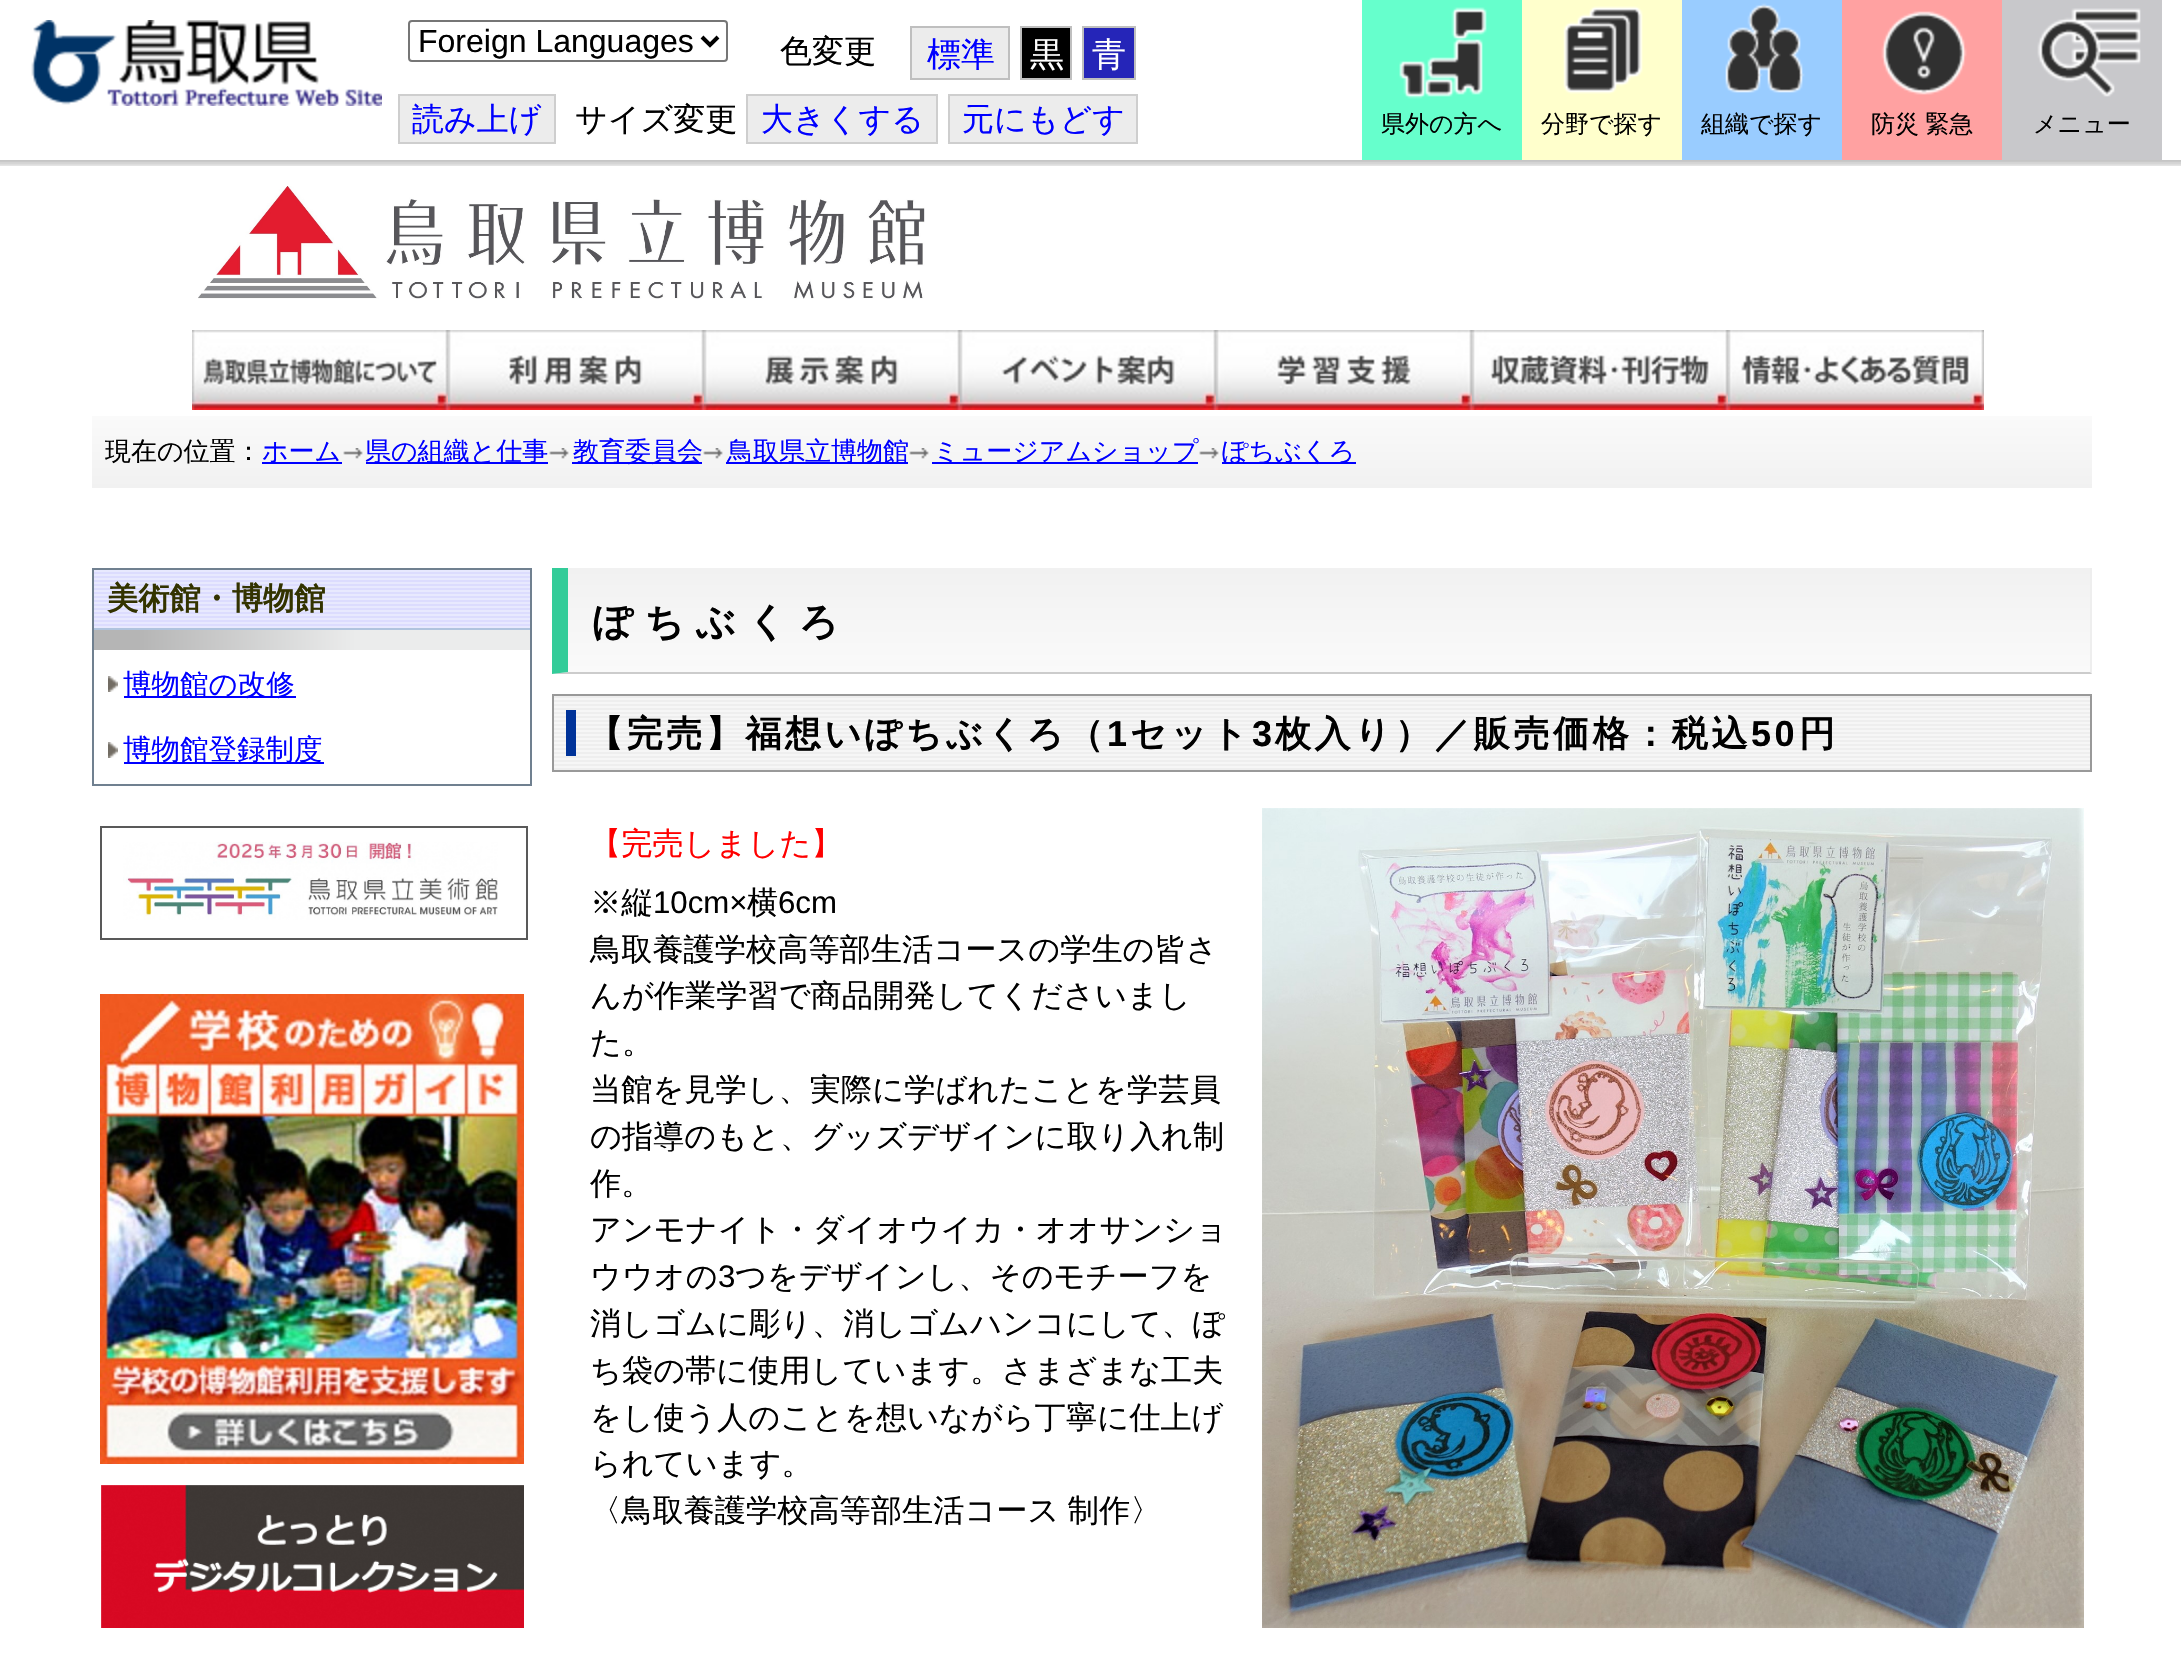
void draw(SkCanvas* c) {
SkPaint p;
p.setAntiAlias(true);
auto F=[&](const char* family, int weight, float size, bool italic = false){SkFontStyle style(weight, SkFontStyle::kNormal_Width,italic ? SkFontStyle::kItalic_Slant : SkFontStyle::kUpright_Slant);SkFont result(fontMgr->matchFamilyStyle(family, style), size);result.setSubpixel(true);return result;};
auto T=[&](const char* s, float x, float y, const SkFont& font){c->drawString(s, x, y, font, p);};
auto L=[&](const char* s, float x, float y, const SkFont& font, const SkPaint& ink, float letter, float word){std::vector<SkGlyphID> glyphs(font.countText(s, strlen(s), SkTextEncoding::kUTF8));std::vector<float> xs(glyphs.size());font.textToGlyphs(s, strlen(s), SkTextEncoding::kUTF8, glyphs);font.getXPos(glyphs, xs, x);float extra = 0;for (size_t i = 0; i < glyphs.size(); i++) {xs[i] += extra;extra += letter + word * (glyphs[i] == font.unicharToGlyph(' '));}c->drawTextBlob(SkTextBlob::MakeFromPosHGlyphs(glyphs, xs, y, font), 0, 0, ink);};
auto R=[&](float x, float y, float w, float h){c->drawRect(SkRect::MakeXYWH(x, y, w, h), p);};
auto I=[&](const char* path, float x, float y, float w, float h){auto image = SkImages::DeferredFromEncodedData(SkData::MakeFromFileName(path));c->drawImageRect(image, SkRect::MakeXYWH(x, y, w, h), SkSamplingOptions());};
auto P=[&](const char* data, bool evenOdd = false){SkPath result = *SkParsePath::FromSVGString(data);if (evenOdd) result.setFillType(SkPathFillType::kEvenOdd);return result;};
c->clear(0xffffffff);
c->save();
c->clipRect(SkRect::MakeXYWH(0,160,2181,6));
p.setColor(0x1a000000);
p.setMaskFilter(SkMaskFilter::MakeBlur(kNormal_SkBlurStyle, 5));
c->drawRect(SkRect::MakeXYWH(-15,2,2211,160),p);
p.setMaskFilter(nullptr);
p.setMaskFilter(SkMaskFilter::MakeBlur(kNormal_SkBlurStyle, 5));
c->drawRect(SkRect::MakeXYWH(-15,2,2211,160),p);
p.setMaskFilter(nullptr);
p.setMaskFilter(SkMaskFilter::MakeBlur(kNormal_SkBlurStyle, 5));
c->drawRect(SkRect::MakeXYWH(-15,2,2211,160),p);
p.setMaskFilter(nullptr);
p.setMaskFilter(SkMaskFilter::MakeBlur(kNormal_SkBlurStyle, 5));
c->drawRect(SkRect::MakeXYWH(-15,2,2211,160),p);
p.setMaskFilter(nullptr);
c->restore();
I("1.png",31,20,351,86);
p.setStroke(true);
p.setStrokeWidth(2);
p.setColor(0xff767676);
c->drawRoundRect(SkRect::MakeXYWH(409,21,318,40),3,3,p);
p.setStrokeWidth(4);
p.setColor(0xff000000);
c->drawPath(P("M702 37l8 8l8-8"),p);
auto f1 = F("Liberation Sans",400,32);
p.setStroke(false);
T("Foreign Languages",418,52,f1);
auto f2 = F("WenQuanYi Zen Hei",500,32);
T("色変更",780,62,f2);
p.setColor(0xffececec);
c->drawRect(SkRect::MakeXYWH(911,27,98,52),p);
p.setStroke(true);
p.setStrokeWidth(2);
p.setColor(0xffbfbfbf);
c->drawRect(SkRect::MakeXYWH(911,27,98,52),p);
auto f3 = F("WenQuanYi Zen Hei",500,34);
p.setStroke(false);
p.setColor(0xff0000ff);
T("標準",927,66,f3);
p.setColor(0xff000000);
c->drawRect(SkRect::MakeXYWH(1021,27,50,52),p);
p.setStroke(true);
p.setColor(0xffbfbfbf);
c->drawRect(SkRect::MakeXYWH(1021,27,50,52),p);
p.setStroke(false);
p.setColor(0xffffffff);
T("黒",1030,66,f3);
p.setColor(0xff2525b8);
c->drawRect(SkRect::MakeXYWH(1083,27,52,52),p);
p.setStroke(true);
p.setColor(0xffbfbfbf);
c->drawRect(SkRect::MakeXYWH(1083,27,52,52),p);
p.setStroke(false);
p.setColor(0xffffffff);
T("青",1092,66,f3);
p.setColor(0xffececec);
c->drawRect(SkRect::MakeXYWH(399,95,156,48),p);
p.setStroke(true);
p.setColor(0xffcecece);
c->drawRect(SkRect::MakeXYWH(399,95,156,48),p);
p.setStroke(false);
p.setColor(0xff0000ff);
T("読み上げ",412,130,f2);
p.setColor(0xff000000);
T("サイズ変更",575,130,f2);
p.setColor(0xffececec);
R(748,96,188,46);
p.setColor(0xff0000ff);
T("大きくする",761,130,f2);
p.setColor(0xffcecece);
R(746,94,192,2);
R(746,142,46,2);
R(746,94,2,50);
R(936,94,2,50);
R(792,142,146,2);
p.setColor(0xffececec);
R(950,96,186,46);
p.setColor(0xff0000ff);
T("元にもどす",962,130,f2);
p.setColor(0xffcecece);
R(948,94,190,2);
R(948,142,46,2);
R(948,94,2,50);
R(1136,94,2,50);
R(994,142,144,2);
p.setColor(0xff66ffcc);
R(1362,0,160,160);
I("2.png",1399,7,88,92);
auto f4 = F("WenQuanYi Zen Hei",500,24);
p.setColor(0xff000000);
T("県外の方へ",1381,132,f4);
p.setColor(0xffffffcc);
R(1522,0,160,160);
I("3.png",1563,6,80,88);
p.setColor(0xff000000);
T("分野で探す",1541,132,f4);
p.setColor(0xff99ccff);
R(1682,0,160,160);
I("4.png",1725,3,80,90);
p.setColor(0xff000000);
T("組織で探す",1701,132,f4);
p.setColor(0xffffa1a1);
R(1842,0,160,160);
I("5.png",1881,11,86,84);
p.setColor(0xff000000);
L("防災 緊急",1871,132,f4,p,0,-1);
p.setColor(0xffc8c8cb);
R(2002,0,160,160);
I("6.png",2037,8,104,89);
p.setColor(0xff000000);
T("メニュー",2033,132,f4);
I("7.png",198,186,727,113);
I("8.png",192,330,256,80);
I("9.png",448,330,256,80);
I("10.png",704,330,256,80);
I("11.png",960,330,256,80);
I("12.png",1216,330,256,80);
I("13.png",1472,330,256,80);
I("14.png",1728,330,256,80);
{
const SkColor colors[] = {0xfffafafa,0xfff1f1f1};
const float stops[] = {0,1};
const SkPoint ends[] = {{1092,416}, {1092,488}};
p.setShader(SkGradientShader::MakeLinear(ends, colors, stops, 2, SkTileMode::kClamp));
p.setAlpha(255);
}
R(92,416,2000,72);
auto f5 = F("WenQuanYi Zen Hei",500,26);
p.setShader(nullptr);
p.setColor(0xff000000);
T("現在の位置：",105,460,f5);
p.setColor(0xff0000ff);
R(262,462,80,2);
T("ホーム",262,460,f5);
I("15.png",343,448,20,11);
R(366,462,182,2);
T("県の組織と仕事",365,460,f5);
I("15.png",549,448,20,11);
R(572,462,130,2);
T("教育委員会",573,460,f5);
I("15.png",703,448,20,11);
R(726,462,182,2);
T("鳥取県立博物館",727,460,f5);
I("15.png",909,448,20,11);
R(932,462,266,2);
T("ミュージアムショップ",933,460,f5);
I("15.png",1199,448,20,11);
R(1222,462,134,2);
T("ぽちぶくろ",1222,460,f5);
p.setStroke(true);
p.setColor(0xff708090);
c->drawRect(SkRect::MakeXYWH(93,569,438,216),p);
I("16.png",94,570,436,58);
p.setStroke(false);
p.setColor(0xffb0c4de);
R(94,628,436,2);
auto f6 = F("WenQuanYi Zen Hei",700,31.2);
p.setColor(0xff333300);
T("美術館・博物館",107,609,f6);
{
const SkColor colors[] = {0xffb5b5b5,0xffb5b5b5,0xffebecec,0xffebecec};
const float stops[] = {0,.1,.6,1};
const SkPoint ends[] = {{94,640}, {530,640}};
p.setShader(SkGradientShader::MakeLinear(ends, colors, stops, 4, SkTileMode::kClamp));
p.setAlpha(255);
}
R(94,630,436,20);
I("17.png",108,676,10,16);
p.setShader(nullptr);
p.setColor(0xff0000ff);
R(124,696,172,2);
auto f7 = F("WenQuanYi Zen Hei",500,28.5);
T("博物館の改修",123,694,f7);
I("17.png",108,742,10,16);
R(124,762,200,2);
T("博物館登録制度",123,759,f7);
p.setStroke(true);
p.setColor(0xff595959);
c->drawRect(SkRect::MakeXYWH(101,827,426,112),p);
I("18.png",123,842,375,78);
I("19.png",100,994,424,470);
I("20.png",101,1485,423,143);
p.setStroke(false);
{
const SkColor colors[] = {0xfff1f1f1,0xfffafafa};
const float stops[] = {0,1};
const SkPoint ends[] = {{1329,568}, {1329,672}};
p.setShader(SkGradientShader::MakeLinear(ends, colors, stops, 2, SkTileMode::kClamp));
p.setAlpha(255);
}
R(568,568,1522,104);
p.setShader(nullptr);
p.setColor(0xffeeeeee);
R(2090,568,2,106);
p.setColor(0xffcccccc);
c->drawPath(P("M2092 674h-1540l16-2h1522z"),p);
p.setColor(0xff33cc99);
c->drawPath(P("M552 674v-106h16v104z"),p);
auto f8 = F("WenQuanYi Zen Hei",700,39);
p.setColor(0xff000000);
L("ぽちぶくろ",593,635,f8,p,11.5,0);
I("21.png",554,696,1536,74);
p.setStroke(true);
p.setColor(0xff999999);
c->drawRect(SkRect::MakeXYWH(553,695,1538,76),p);
p.setStroke(false);
p.setColor(0xff003399);
R(566,710,10,46);
auto f9 = F("WenQuanYi Zen Hei",700,36);
p.setColor(0xff000000);
L("【完売】福想いぽちぶくろ（",587,746,f9,p,3.6,0);
auto f10 = F("Liberation Sans",700,36);
L("1",1107,746,f10,p,3.6,0);
L("セット",1130,746,f9,p,3.6,0);
L("3",1252,746,f10,p,3.6,0);
L("枚入り）／販売価格：税込",1275,746,f9,p,3.6,0);
L("50",1751,746,f10,p,3.6,0);
L("円",1799,746,f9,p,3.6,0);
auto f11 = F("WenQuanYi Zen Hei",500,31.2);
p.setColor(0xffff0000);
T("【完売しました】",590,854,f11);
I("22.png",1262,808,822,820);
p.setColor(0xff000000);
T("※縦",590,913,f11);
auto f12 = F("Liberation Sans",400,31.2);
T("10cm×",653,913,f12);
T("横",747,913,f11);
T("6cm",778,913,f12);
T("鳥取養護学校高等部生活コースの学生の皆さ",590,960,f11);
T("んが作業学習で商品開発してくださいまし",590,1006,f11);
T("た。",590,1053,f11);
T("当館を見学し、実際に学ばれたことを学芸員",590,1100,f11);
T("の指導のもと、グッズデザインに取り入れ制",590,1147,f11);
T("作。",590,1194,f11);
T("アンモナイト・ダイオウイカ・オオサンショ",590,1240,f11);
T("ウウオの",590,1287,f11);
T("3",718,1287,f12);
T("つをデザインし、そのモチーフを",735,1287,f11);
T("消しゴムに彫り、消しゴムハンコにして、ぽ",590,1334,f11);
T("ち袋の帯に使用しています。さまざまな工夫",590,1381,f11);
T("をし使う人のことを想いながら丁寧に仕上げ",590,1428,f11);
T("られています。",590,1474,f11);
L("〈鳥取養護学校高等部生活コース 制作〉",590,1521,f11,p,0,-1);
}
